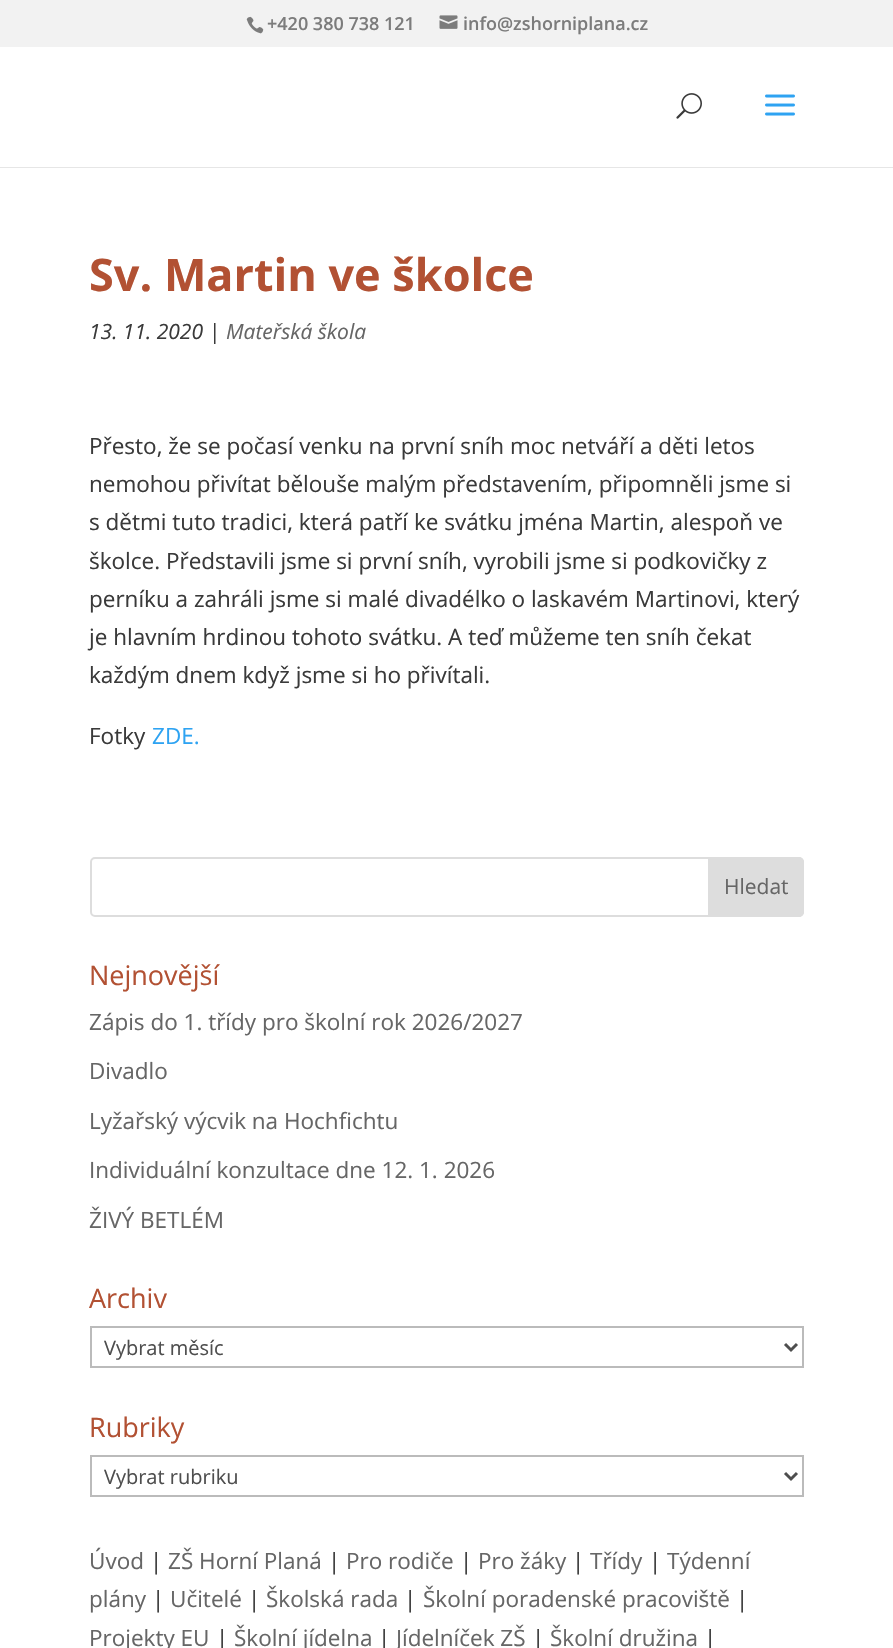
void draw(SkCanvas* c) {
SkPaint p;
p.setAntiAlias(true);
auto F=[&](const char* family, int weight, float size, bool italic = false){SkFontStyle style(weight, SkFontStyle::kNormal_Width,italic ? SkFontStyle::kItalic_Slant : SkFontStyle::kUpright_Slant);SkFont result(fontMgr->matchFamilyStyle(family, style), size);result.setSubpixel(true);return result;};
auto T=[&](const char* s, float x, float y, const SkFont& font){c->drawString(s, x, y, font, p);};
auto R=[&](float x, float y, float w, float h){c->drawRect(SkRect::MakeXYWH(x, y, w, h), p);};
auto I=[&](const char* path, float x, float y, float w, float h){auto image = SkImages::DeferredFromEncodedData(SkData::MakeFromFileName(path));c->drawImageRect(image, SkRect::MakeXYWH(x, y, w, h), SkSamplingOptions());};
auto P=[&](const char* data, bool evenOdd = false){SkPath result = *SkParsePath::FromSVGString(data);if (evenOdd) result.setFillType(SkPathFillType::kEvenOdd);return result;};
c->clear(0xffffffff);
p.setColor(0xfff2f2f2);
R(0,0,893,47);
I("1.png",246,16,18,18);
auto f1 = F("Open Sans",600,18);
p.setColor(0xff7c7c7c);
T("+420 380 738 121",267,30,f1);
I("2.png",439,15,19,14);
T("info@zshorniplana.cz",463,30,f1);
p.setColor(0xffe6e6e6);
R(0,167,893,1);
I("3.png",676,93,26,26);
I("4.png",765,94,30,22);
auto f2 = F("Open Sans",700,45);
p.setColor(0xffb25133);
T("Sv. Martin ve školce",89,291,f2);
auto f3 = F("Open Sans",400,21,true);
p.setColor(0xff3a3a3a);
T("13. 11. 2020 |",89,339,f3);
p.setColor(0xff666666);
T("Mateřská škola",226,339,f3);
auto f4 = F("Open Sans",400,22.5);
p.setColor(0xff3a3a3a);
T("Přesto, že se počasí venku na první sníh moc netváří a děti letos",89,454,f4);
T("nemohou přivítat bělouše malým představením, připomněli jsme si",89,492,f4);
T("s dětmi tuto tradici, která patří ke svátku jména Martin, alespoň ve",89,530,f4);
T("školce. Představili jsme si první sníh, vyrobili jsme si podkovičky z",89,569,f4);
T("perníku a zahráli jsme si malé divadélko o laskavém Martinovi, který",89,607,f4);
T("je hlavním hrdinou tohoto svátku. A teď můžeme ten sníh čekat",89,645,f4);
T("každým dnem když jsme si ho přivítali.",89,683,f4);
T("Fotky",89,744,f4);
p.setColor(0xff2ea3f2);
T("ZDE.",152,744,f4);
p.setStroke(true);
p.setStrokeWidth(2);
p.setColor(0xffdddddd);
c->drawRoundRect(SkRect::MakeXYWH(91,858,712,58),4,4,p);
p.setStroke(false);
c->drawPath(P("M709 858h90c2 0 4 2 4 4v50c0 2-2 4-4 4h-90z"),p);
p.setStroke(true);
c->drawPath(P("M709 858h90c2 0 4 2 4 4v50c0 2-2 4-4 4h-90z"),p);
auto f5 = F("Open Sans",400,21);
p.setStroke(false);
p.setColor(0xff666666);
T("Hledat",724,894,f5);
auto f6 = F("Open Sans",400,27);
p.setColor(0xffb25133);
T("Nejnovější",89,985,f6);
p.setColor(0xff666666);
T("Zápis do 1. třídy pro školní rok 2026/2027",89,1030,f4);
T("Divadlo",89,1079,f4);
T("Lyžařský výcvik na Hochfichtu",89,1129,f4);
T("Individuální konzultace dne 12. 1. 2026",89,1178,f4);
T("ŽIVÝ BETLÉM",89,1228,f4);
p.setColor(0xffb25133);
T("Archiv",89,1308,f6);
p.setStroke(true);
p.setColor(0xffbbbbbb);
c->drawRect(SkRect::MakeXYWH(91,1327,712,40),p);
p.setStrokeWidth(3);
p.setColor(0xff4e4e4e);
c->drawPath(P("M785 1344l6 6l6-6"),p);
auto f7 = F("Open Sans",400,20);
p.setStroke(false);
T("Vybrat měsíc",104,1355,f7);
p.setColor(0xffb25133);
T("Rubriky",89,1437,f6);
p.setStroke(true);
p.setStrokeWidth(2);
p.setColor(0xffbbbbbb);
c->drawRect(SkRect::MakeXYWH(91,1456,712,40),p);
p.setStrokeWidth(3);
p.setColor(0xff4e4e4e);
c->drawPath(P("M785 1473l6 6l6-6"),p);
p.setStroke(false);
T("Vybrat rubriku",104,1484,f7);
p.setColor(0xff666666);
T("Úvod",89,1569,f4);
p.setColor(0xff3a3a3a);
T("|",150,1569,f4);
p.setColor(0xff666666);
T("ZŠ Horní Planá",168,1569,f4);
p.setColor(0xff3a3a3a);
T("|",328,1569,f4);
p.setColor(0xff666666);
T("Pro rodiče",346,1569,f4);
p.setColor(0xff3a3a3a);
T("|",460,1569,f4);
p.setColor(0xff666666);
T("Pro žáky",478,1569,f4);
p.setColor(0xff3a3a3a);
T("|",572,1569,f4);
p.setColor(0xff666666);
T("Třídy",590,1569,f4);
p.setColor(0xff3a3a3a);
T("|",649,1569,f4);
p.setColor(0xff666666);
T("Týdenní",667,1569,f4);
T("plány",89,1607,f4);
p.setColor(0xff3a3a3a);
T("|",152,1607,f4);
p.setColor(0xff666666);
T("Učitelé",170,1607,f4);
p.setColor(0xff3a3a3a);
T("|",248,1607,f4);
p.setColor(0xff666666);
T("Školská rada",266,1607,f4);
p.setColor(0xff3a3a3a);
T("|",404,1607,f4);
p.setColor(0xff666666);
T("Školní poradenské pracoviště",423,1607,f4);
p.setColor(0xff3a3a3a);
T("|",736,1607,f4);
p.setColor(0xff666666);
T("Projekty EU",89,1646,f4);
p.setColor(0xff3a3a3a);
T("|",216,1646,f4);
p.setColor(0xff666666);
T("Školní jídelna",234,1646,f4);
p.setColor(0xff3a3a3a);
T("|",378,1646,f4);
p.setColor(0xff666666);
T("Jídelníček ZŠ",396,1646,f4);
p.setColor(0xff3a3a3a);
T("|",532,1646,f4);
p.setColor(0xff666666);
T("Školní družina",550,1646,f4);
p.setColor(0xff3a3a3a);
T("|",704,1646,f4);
}
